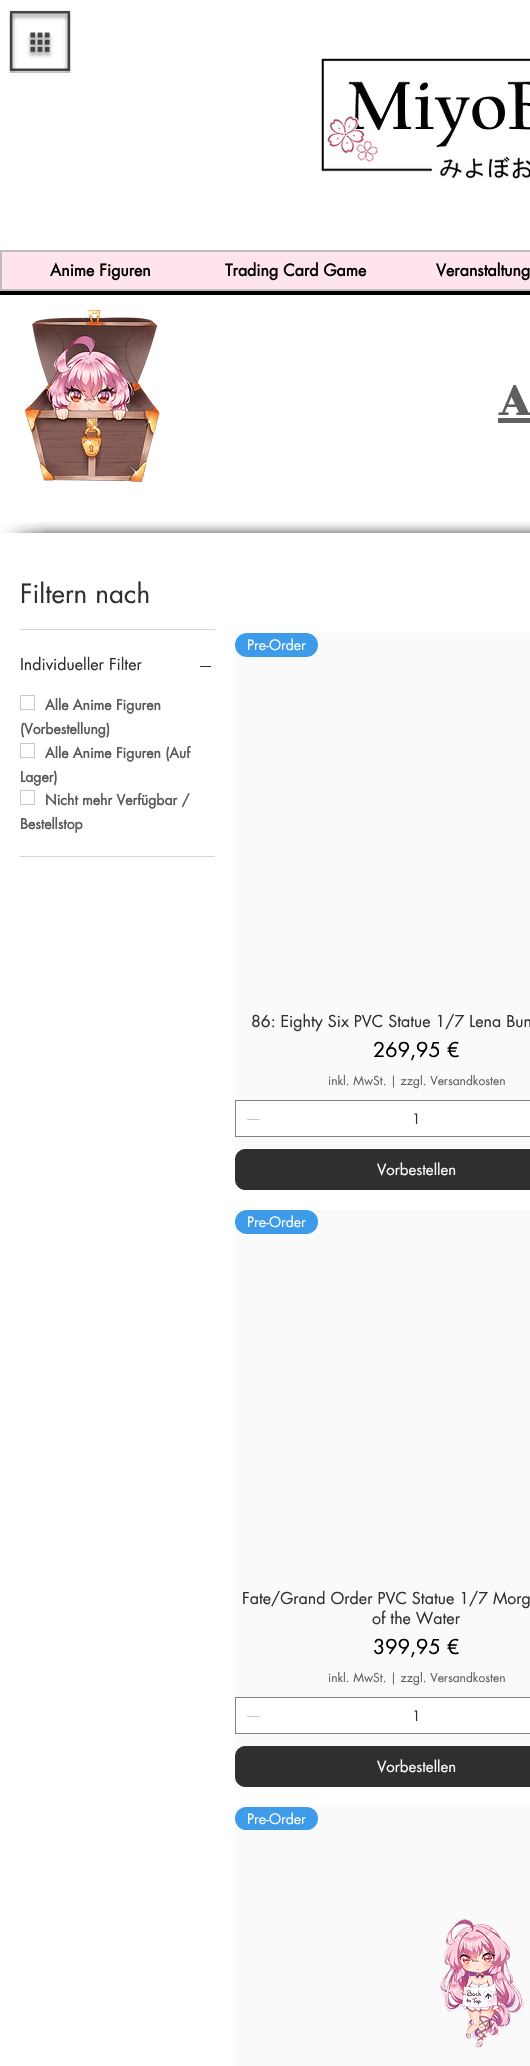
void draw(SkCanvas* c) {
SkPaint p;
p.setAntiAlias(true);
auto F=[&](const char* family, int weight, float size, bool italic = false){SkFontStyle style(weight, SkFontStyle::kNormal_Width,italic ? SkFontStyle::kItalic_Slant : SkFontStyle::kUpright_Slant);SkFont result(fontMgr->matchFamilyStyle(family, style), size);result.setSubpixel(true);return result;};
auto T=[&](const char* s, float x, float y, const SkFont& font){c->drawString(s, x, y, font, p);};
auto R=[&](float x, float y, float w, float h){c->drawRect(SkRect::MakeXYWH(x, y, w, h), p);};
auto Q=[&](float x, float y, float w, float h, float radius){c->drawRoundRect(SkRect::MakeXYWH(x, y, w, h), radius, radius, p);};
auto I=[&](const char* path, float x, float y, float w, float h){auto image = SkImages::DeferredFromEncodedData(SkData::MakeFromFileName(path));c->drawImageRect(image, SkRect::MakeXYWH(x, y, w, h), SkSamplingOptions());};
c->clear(0xffffffff);
I("1.png",9,10,62,63);
I("2.png",321,58,209,121);
p.setColor(0xff000000);
R(0,291,530,4);
p.setColor(0xffffe4ec);
c->drawRect(SkRect::MakeXYWH(1,251,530,39),p);
p.setStroke(true);
p.setStrokeWidth(2);
p.setColor(0xffbebcc2);
c->drawRect(SkRect::MakeXYWH(1,251,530,39),p);
auto f1 = F("futura",700,16);
p.setStroke(false);
p.setColor(0xff000000);
T("Anime Figuren",50,276,f1);
T("Trading Card Game",225,276,f1);
T("Veranstaltung",436,276,f1);
I("3.png",24,309,136,173);
auto f2 = F("Rozha One",700,50);
p.setColor(0xff5f5e61);
T("A",498,415,f2);
R(498,418,32,5);
I("4.png",44,522,486,11);
I("5.png",2,522,42,11);
p.setColor(0xffd5d5d6);
R(20,629,195,1);
auto f3 = F("futura",400,26);
p.setColor(0xff2f2f30);
T("Filtern nach",20,603,f3);
p.setColor(0xffd5d5d6);
R(20,856,195,1);
auto f4 = F("futura",400,16);
p.setColor(0xff2f2f30);
T("Individueller Filter",20,670,f4);
R(200,666,11,1);
p.setStroke(true);
p.setStrokeWidth(1);
p.setColor(0xffc9c9c9);
c->drawRect(SkRect::MakeXYWH(20.5,695.5,14,14),p);
auto f5 = F("futura",700,14);
p.setStroke(false);
p.setColor(0xff595959);
T("Alle Anime Figuren",45,710,f5);
T("(Vorbestellung)",20,734,f5);
p.setStroke(true);
p.setColor(0xffc9c9c9);
c->drawRect(SkRect::MakeXYWH(20.5,743.5,14,14),p);
p.setStroke(false);
p.setColor(0xff595959);
T("Alle Anime Figuren (Auf",45,758,f5);
T("Lager)",20,782,f5);
p.setStroke(true);
p.setColor(0xffc9c9c9);
c->drawRect(SkRect::MakeXYWH(20.5,790.5,14,14),p);
p.setStroke(false);
p.setColor(0xff595959);
T("Nicht mehr Verfügbar /",45,805,f5);
T("Bestellstop",20,829,f5);
p.setColor(0xfffafafa);
R(235,633,295,557);
p.setColor(0xff3d9be9);
Q(235,633,83,24,12);
auto f6 = F("futura",400,14);
p.setColor(0xffffffff);
T("Pre-Order",247,650,f6);
p.setColor(0xff2f2f30);
T("86: Eighty Six PVC Statue 1/7 Lena Bun",251,1027,f4);
auto f7 = F("futura",400,20);
p.setColor(0xff000000);
T("269,95 €",373,1057,f7);
auto f8 = F("futura",400,12);
p.setColor(0xff5f5e61);
T("inkl. MwSt. | zzgl. Versandkosten",328,1085,f8);
p.setColor(0xffffffff);
c->drawRect(SkRect::MakeXYWH(235.5,1100.5,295,36),p);
p.setStroke(true);
p.setColor(0xff828283);
c->drawRect(SkRect::MakeXYWH(235.5,1100.5,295,36),p);
p.setStroke(false);
p.setColor(0xffc7c6c8);
R(247,1119,13,1);
p.setColor(0xff2f2f30);
T("1",412,1124,f6);
c->drawRoundRect(SkRect::MakeXYWH(235.5,1149.5,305,40),9.5,9.5,p);
p.setStroke(true);
c->drawRoundRect(SkRect::MakeXYWH(235.5,1149.5,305,40),9.5,9.5,p);
auto f9 = F("futura",400,15);
p.setStroke(false);
p.setColor(0xffffffff);
T("Vorbestellen",377,1175,f9);
p.setColor(0xfffafafa);
R(235,1210,295,577);
p.setColor(0xff3d9be9);
Q(235,1210,83,24,12);
p.setColor(0xffffffff);
T("Pre-Order",247,1227,f6);
p.setColor(0xff2f2f30);
T("Fate/Grand Order PVC Statue 1/7 Morg",242,1604,f4);
T("of the Water",372,1624,f4);
p.setColor(0xff000000);
T("399,95 €",373,1654,f7);
p.setColor(0xff5f5e61);
T("inkl. MwSt. | zzgl. Versandkosten",328,1682,f8);
p.setColor(0xffffffff);
c->drawRect(SkRect::MakeXYWH(235.5,1697.5,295,36),p);
p.setStroke(true);
p.setColor(0xff828283);
c->drawRect(SkRect::MakeXYWH(235.5,1697.5,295,36),p);
p.setStroke(false);
p.setColor(0xffc7c6c8);
R(247,1716,13,1);
p.setColor(0xff2f2f30);
T("1",412,1721,f6);
c->drawRoundRect(SkRect::MakeXYWH(235.5,1746.5,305,40),9.5,9.5,p);
p.setStroke(true);
c->drawRoundRect(SkRect::MakeXYWH(235.5,1746.5,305,40),9.5,9.5,p);
p.setStroke(false);
p.setColor(0xffffffff);
T("Vorbestellen",377,1772,f9);
p.setColor(0xfffafafa);
R(235,1807,295,259);
p.setColor(0xff3d9be9);
Q(235,1807,83,23,11.5);
p.setColor(0xffffffff);
T("Pre-Order",247,1824,f6);
I("6.png",440,1919,85,129);
}
